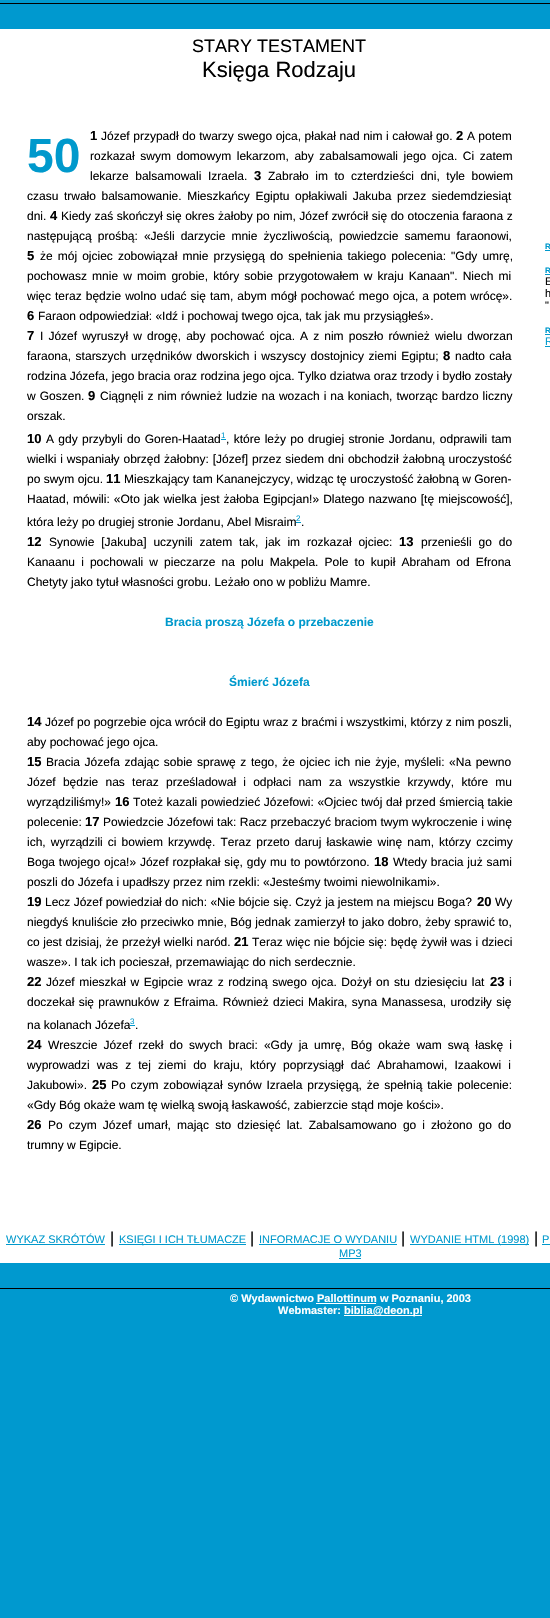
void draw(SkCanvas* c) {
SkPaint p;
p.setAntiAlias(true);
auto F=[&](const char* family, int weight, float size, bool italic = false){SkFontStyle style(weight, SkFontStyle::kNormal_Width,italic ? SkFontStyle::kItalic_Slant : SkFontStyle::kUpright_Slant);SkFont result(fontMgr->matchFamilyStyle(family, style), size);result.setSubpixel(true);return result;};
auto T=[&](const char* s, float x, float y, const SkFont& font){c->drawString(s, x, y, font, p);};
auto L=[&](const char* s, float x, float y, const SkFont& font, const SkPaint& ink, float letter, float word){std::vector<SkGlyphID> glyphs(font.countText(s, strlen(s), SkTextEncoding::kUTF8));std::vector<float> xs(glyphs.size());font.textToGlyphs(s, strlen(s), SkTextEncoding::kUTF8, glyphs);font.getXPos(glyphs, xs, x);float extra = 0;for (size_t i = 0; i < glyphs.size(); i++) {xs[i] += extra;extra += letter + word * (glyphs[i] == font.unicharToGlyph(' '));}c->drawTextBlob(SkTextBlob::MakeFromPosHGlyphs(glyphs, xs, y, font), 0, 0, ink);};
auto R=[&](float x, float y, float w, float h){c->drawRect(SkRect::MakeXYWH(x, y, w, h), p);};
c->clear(0xff0099cf);
p.setColor(0xff000000);
R(0,3,550,1);
p.setColor(0xffffffff);
R(0,29,550,1234);
auto f1 = F("Liberation Sans",400,18);
p.setColor(0xff000000);
T("STARY TESTAMENT",192,52,f1);
auto f2 = F("Liberation Sans",400,22);
T("Księga Rodzaju",202,77,f2);
auto f3 = F("Liberation Sans",700,48);
p.setColor(0xff0099cc);
T("50",27,172,f3);
auto f4 = F("Liberation Sans",700,13);
p.setColor(0xff000000);
T("1",90,140,f4);
auto f5 = F("Liberation Sans",400,12);
L("Józef przypadł do twarzy swego ojca, płakał nad nim i całował go.",101,140,f5,p,0,.25);
T("2",456,140,f4);
T("A potem",467,140,f5);
L("rozkazał swym domowym lekarzom, aby zabalsamowali jego ojca. Ci zatem",90,160,f5,p,0,2.25);
L("lekarze balsamowali Izraela.",90,180,f5,p,0,3.25);
T("3",254,180,f4);
L("Zabrało im to czterdzieści dni, tyle bowiem",268,180,f5,p,0,3.25);
L("czasu trwało balsamowanie. Mieszkańcy Egiptu opłakiwali Jakuba przez siedemdziesiąt",27,200,f5,p,0,2.25);
T("dni.",27,220,f5);
T("4",50,220,f4);
L("Kiedy zaś skończył się okres żałoby po nim, Józef zwrócił się do otoczenia faraona z",61,220,f5,p,0,.2);
L("następującą prośbą: «Jeśli darzycie mnie życzliwością, powiedzcie samemu faraonowi,",27,240,f5,p,0,2.75);
T("5",27,260,f4);
L("że mój ojciec zobowiązał mnie przysięgą do spełnienia takiego polecenia: \"Gdy umrę,",40,260,f5,p,0,1.75);
L("pochowasz mnie w moim grobie, który sobie przygotowałem w kraju Kanaan\". Niech mi",27,280,f5,p,0,1.75);
L("więc teraz będzie wolno udać się tam, abym mógł pochować mego ojca, a potem wrócę».",27,300,f5,p,0,.7);
T("6",27,320,f4);
T("Faraon odpowiedział: «Idź i pochowaj twego ojca, tak jak mu przysiągłeś».",38,320,f5);
T("7",27,340,f4);
L("I Józef wyruszył w drogę, aby pochować ojca. A z nim poszło również wielu dworzan",40,340,f5,p,0,1.75);
L("faraona, starszych urzędników dworskich i wszyscy dostojnicy ziemi Egiptu;",27,360,f5,p,0,1.25);
T("8",443,360,f4);
L("nadto cała",455,360,f5,p,0,1);
T("rodzina Józefa, jego bracia oraz rodzina jego ojca. Tylko dziatwa oraz trzody i bydło zostały",27,380,f5);
L("w Goszen.",27,400,f5,p,0,.7);
T("9",88,400,f4);
L("Ciągnęli z nim również ludzie na wozach i na koniach, tworząc bardzo liczny",100,400,f5,p,0,.7);
T("orszak.",27,420,f5);
T("10",27,443,f4);
L("A gdy przybyli do Goren-Haatad",46,443,f5,p,0,1);
auto f6 = F("Liberation Sans",400,8);
p.setColor(0xff0099cc);
T("1",221,438,f6);
R(221,439,5,1);
p.setColor(0xff000000);
L(", które leży po drugiej stronie Jordanu, odprawili tam",226,443,f5,p,0,1);
L("wielki i wspaniały obrzęd żałobny: [Józef] przez siedem dni obchodził żałobną uroczystość",27,463,f5,p,0,.6);
T("po swym ojcu.",27,483,f5);
T("11",106,483,f4);
T("Mieszkający tam Kananejczycy, widząc tę uroczystość żałobną w Goren-",124,483,f5);
L("Haatad, mówili: «Oto jak wielka jest żałoba Egipcjan!» Dlatego nazwano [tę miejscowość],",27,503,f5,p,0,.75);
T("która leży po drugiej stronie Jordanu, Abel Misraim",27,526,f5);
p.setColor(0xff0099cc);
T("2",296,521,f6);
R(296,522,5,1);
p.setColor(0xff000000);
T(".",301,526,f5);
T("12",27,546,f4);
L("Synowie [Jakuba] uczynili zatem tak, jak im rozkazał ojciec:",49,546,f5,p,0,3.5);
T("13",399,546,f4);
L("przenieśli go do",421,546,f5,p,0,3.5);
L("Kanaanu i pochowali w pieczarze na polu Makpela. Pole to kupił Abraham od Efrona",27,566,f5,p,0,2.75);
T("Chetyty jako tytuł własności grobu. Leżało ono w pobliżu Mamre.",27,586,f5);
auto f7 = F("Liberation Sans",700,12);
p.setColor(0xff0099cc);
T("Bracia proszą Józefa o przebaczenie",165,626,f7);
T("Śmierć Józefa",229,686,f7);
p.setColor(0xff000000);
T("14",27,726,f4);
T("Józef po pogrzebie ojca wrócił do Egiptu wraz z braćmi i wszystkimi, którzy z nim poszli,",45,726,f5);
T("aby pochować jego ojca.",27,746,f5);
T("15",27,766,f4);
L("Bracia Józefa zdając sobie sprawę z tego, że ojciec ich nie żyje, myśleli: «Na pewno",46,766,f5,p,0,1.25);
L("Józef będzie nas teraz prześladował i odpłaci nam za wszystkie krzywdy, które mu",27,786,f5,p,0,3.9);
T("wyrządziliśmy!»",27,806,f5);
T("16",115,806,f4);
L("Toteż kazali powiedzieć Józefowi: «Ojciec twój dał przed śmiercią takie",133,806,f5,p,0,.25);
T("polecenie:",27,826,f5);
T("17",85,826,f4);
T("Powiedzcie Józefowi tak: Racz przebaczyć braciom twym wykroczenie i winę",103,826,f5);
L("ich, wyrządzili ci bowiem krzywdę. Teraz przeto daruj łaskawie winę nam, którzy czcimy",27,846,f5,p,0,1.75);
L("Boga twojego ojca!» Józef rozpłakał się, gdy mu to powtórzono.",27,866,f5,p,0,.5);
T("18",374,866,f4);
L("Wtedy bracia już sami",393,866,f5,p,0,.5);
T("poszli do Józefa i upadłszy przez nim rzekli: «Jesteśmy twoimi niewolnikami».",27,886,f5);
T("19",27,906,f4);
T("Lecz Józef powiedział do nich: «Nie bójcie się. Czyż ja jestem na miejscu Boga?",45,906,f5);
T("20",477,906,f4);
T("Wy",495,906,f5);
L("niegdyś knuliście zło przeciwko mnie, Bóg jednak zamierzył to jako dobro, żeby sprawić to,",27,926,f5,p,0,.25);
L("co jest dzisiaj, że przeżył wielki naród.",27,946,f5,p,0,.25);
T("21",234,946,f4);
L("Teraz więc nie bójcie się: będę żywił was i dzieci",252,946,f5,p,0,.25);
T("wasze». I tak ich pocieszał, przemawiając do nich serdecznie.",27,966,f5);
T("22",27,986,f4);
L("Józef mieszkał w Egipcie wraz z rodziną swego ojca. Dożył on stu dziesięciu lat",46,986,f5,p,0,1.25);
T("23",490,986,f4);
T("i",509,986,f5);
L("doczekał się prawnuków z Efraima. Również dzieci Makira, syna Manassesa, urodziły się",27,1006,f5,p,0,1);
T("na kolanach Józefa",27,1029,f5);
p.setColor(0xff0099cc);
T("3",130,1024,f6);
R(130,1025,5,1);
p.setColor(0xff000000);
T(".",135,1029,f5);
T("24",27,1049,f4);
L("Wreszcie Józef rzekł do swych braci: «Gdy ja umrę, Bóg okaże wam swą łaskę i",48,1049,f5,p,0,2.75);
L("wyprowadzi was z tej ziemi do kraju, który poprzysiągł dać Abrahamowi, Izaakowi i",27,1069,f5,p,0,3.75);
T("Jakubowi».",27,1089,f5);
T("25",92,1089,f4);
L("Po czym zobowiązał synów Izraela przysięgą, że spełnią takie polecenie:",111,1089,f5,p,0,1.5);
T("«Gdy Bóg okaże wam tę wielką swoją łaskawość, zabierzcie stąd moje kości».",27,1109,f5);
T("26",27,1129,f4);
L("Po czym Józef umarł, mając sto dziesięć lat. Zabalsamowano go i złożono go do",48,1129,f5,p,0,2.75);
T("trumny w Egipcie.",27,1149,f5);
auto f8 = F("Liberation Sans",700,8);
p.setColor(0xff0099cc);
T("R",545,249,f8);
R(545,250,5,1);
T("R",545,273,f8);
R(545,274,5,1);
auto f9 = F("Liberation Sans",400,11);
p.setColor(0xff000000);
T("E",545,285,f9);
T("h",545,297,f9);
T("\"",545,309,f9);
p.setColor(0xff0099cc);
T("R",545,333,f8);
R(545,334,5,1);
T("R",545,345,f9);
R(545,346,5,1);
T("WYKAZ SKRÓTÓW",6,1243,f9);
R(6,1244,99,1);
auto f10 = F("Liberation Sans",400,16);
p.setColor(0xff000000);
T("|",110,1243,f10);
p.setColor(0xff0099cc);
R(119,1244,127,1);
T("KSIĘGI I ICH TŁUMACZE",119,1243,f9);
p.setColor(0xff000000);
T("|",250,1243,f10);
p.setColor(0xff0099cc);
T("INFORMACJE O WYDANIU",259,1243,f9);
R(259,1244,138,1);
p.setColor(0xff000000);
T("|",401,1243,f10);
p.setColor(0xff0099cc);
R(410,1244,119,1);
T("WYDANIE HTML (1998)",410,1243,f9);
p.setColor(0xff000000);
T("|",534,1243,f10);
p.setColor(0xff0099cc);
T("P",542,1243,f9);
R(542,1244,8,1);
T("MP3",339,1257,f9);
R(339,1258,22,1);
p.setColor(0xff000000);
R(0,1288,550,1);
auto f11 = F("Liberation Sans",700,11);
p.setColor(0xffffffff);
T("© Wydawnictwo Pallottinum w Poznaniu, 2003",230,1302,f11);
R(316,1303,60,1);
T("Webmaster:",278,1314,f11);
R(344,1315,78,1);
T("biblia@deon.pl",344,1314,f11);
}
